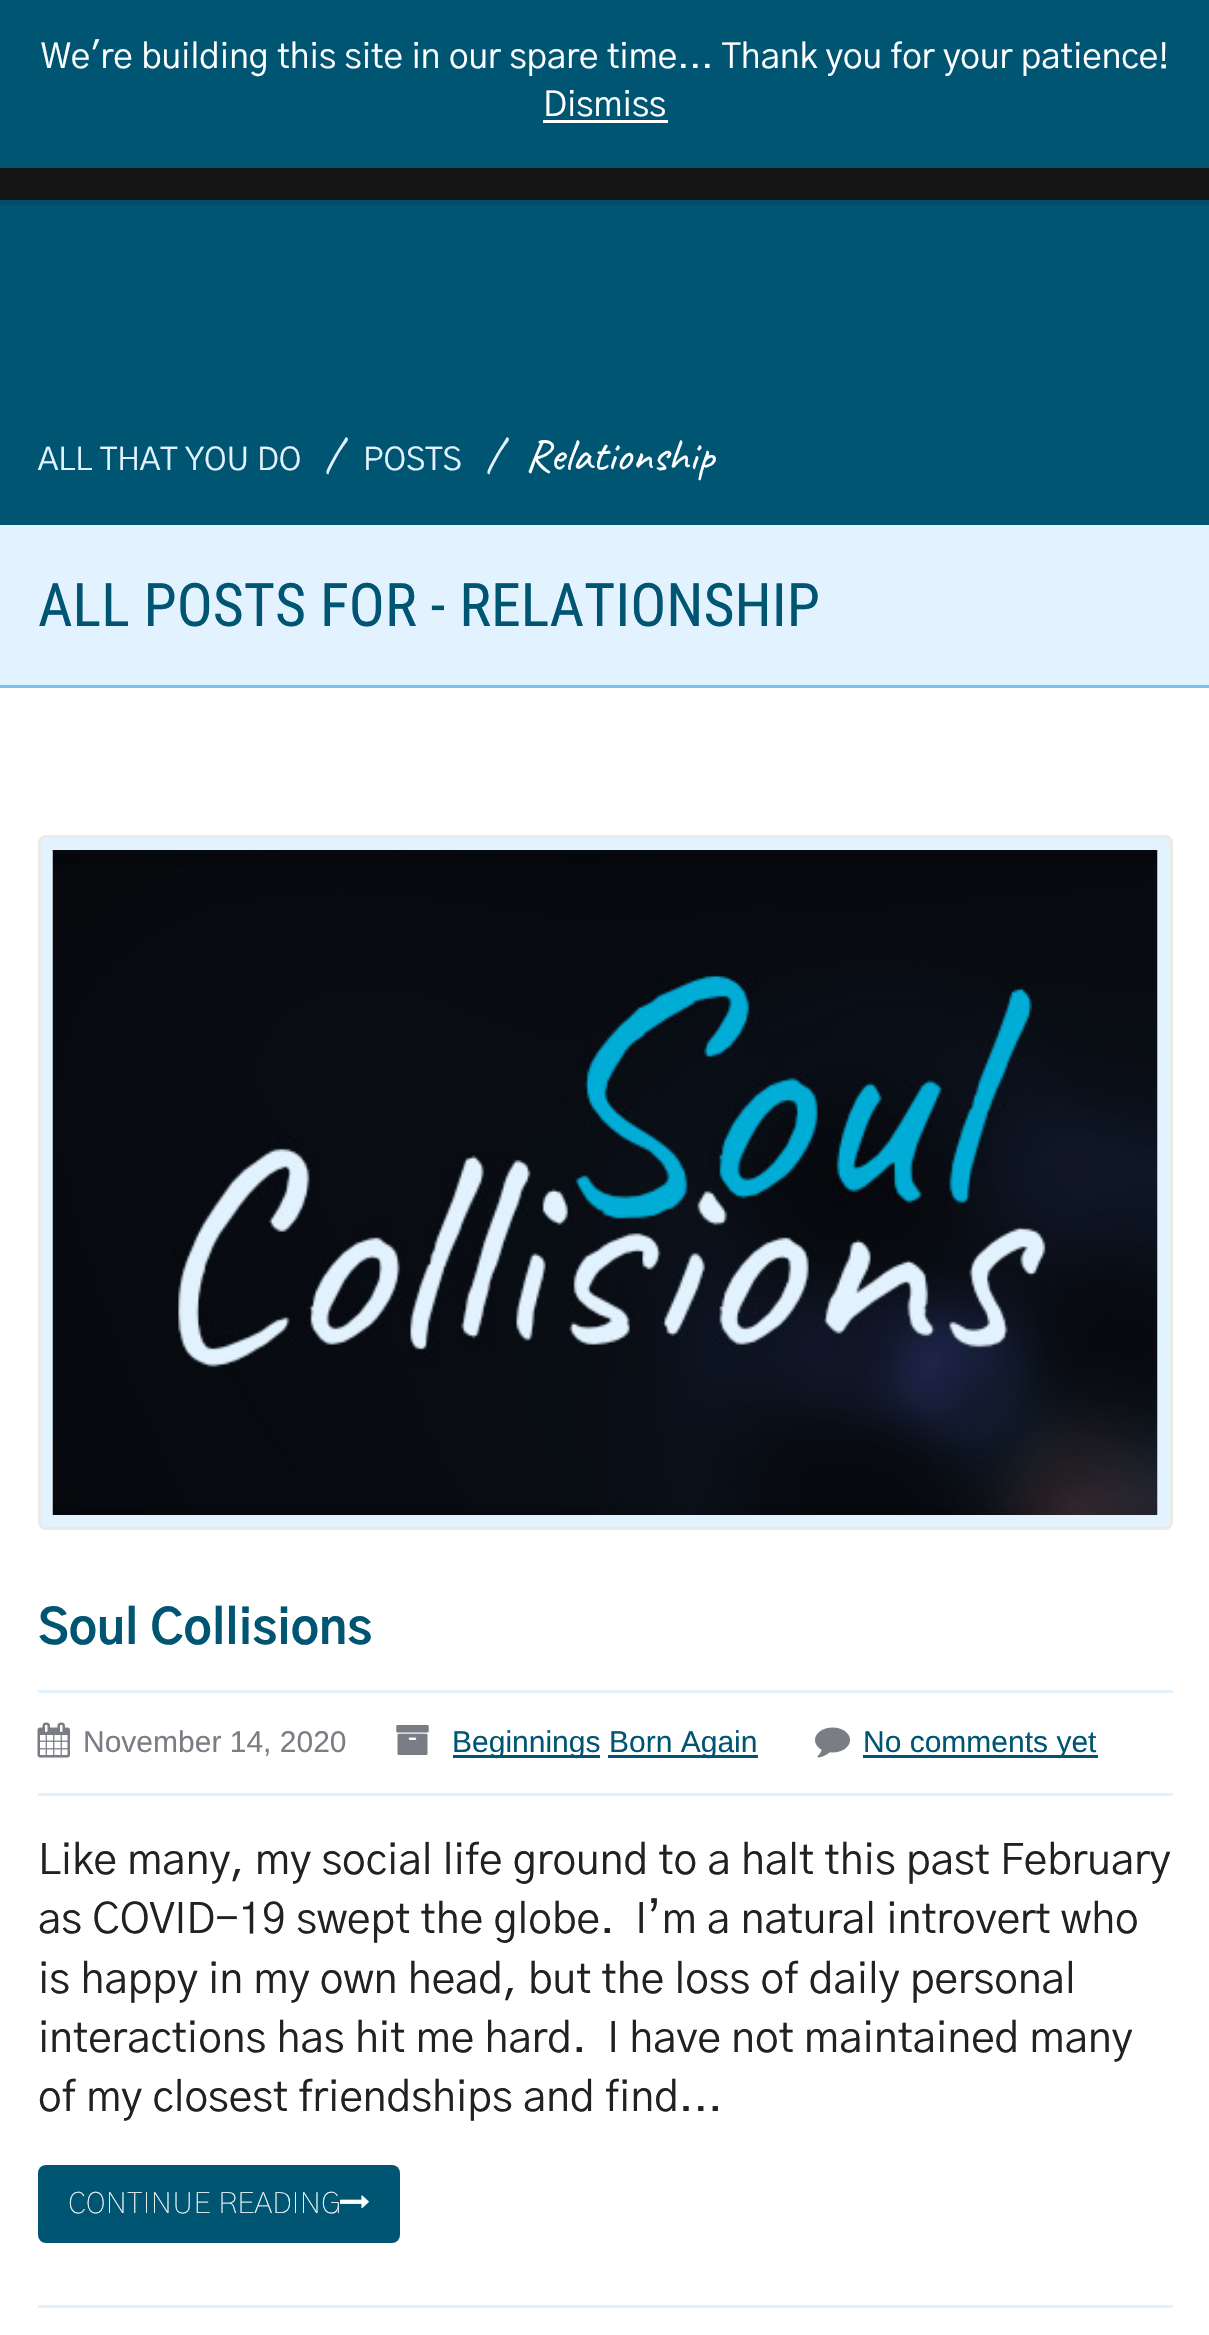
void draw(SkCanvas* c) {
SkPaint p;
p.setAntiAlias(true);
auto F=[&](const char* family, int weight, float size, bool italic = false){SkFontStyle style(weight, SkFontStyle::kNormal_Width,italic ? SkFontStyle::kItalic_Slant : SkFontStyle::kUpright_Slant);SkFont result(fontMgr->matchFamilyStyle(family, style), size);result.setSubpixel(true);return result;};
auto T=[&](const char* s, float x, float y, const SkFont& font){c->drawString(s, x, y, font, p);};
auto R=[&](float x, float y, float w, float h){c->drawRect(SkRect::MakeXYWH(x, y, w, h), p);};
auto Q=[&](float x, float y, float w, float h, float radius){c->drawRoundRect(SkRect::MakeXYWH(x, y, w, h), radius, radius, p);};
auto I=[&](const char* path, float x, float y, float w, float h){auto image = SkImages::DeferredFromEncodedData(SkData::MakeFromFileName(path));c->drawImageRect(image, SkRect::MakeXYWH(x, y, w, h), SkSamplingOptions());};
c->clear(0xffffffff);
p.setColor(0xff005573);
R(0,0,1209,168);
auto f1 = F("Gothic A1",400,35);
p.setColor(0xffffffff);
T("We're building this site in our spare time... Thank you for your patience!",41,68,f1);
T("Dismiss",543,116,f1);
R(543,120,125,3);
p.setColor(0xff004d68);
R(0,200,1209,5);
p.setColor(0xff151515);
R(0,168,1209,32);
p.setColor(0xff005573);
R(0,205,1209,320);
auto f2 = F("Gothic A1",400,31.75);
p.setColor(0xffe2f3ff);
T("ALL THAT YOU DO",38,470,f2);
auto f3 = F("Caveat",400,45.5);
T("/",325,470,f3);
T("POSTS",363,470,f2);
T("/",486,470,f3);
p.setColor(0xffffffff);
T("Relationship",525,470,f3);
p.setColor(0xff6fc5ed);
R(0,685,1209,3);
p.setColor(0xffe2f3ff);
R(0,525,1209,160);
auto f4 = F("Roboto Condensed",400,60);
p.setColor(0xff005573);
T("ALL POSTS FOR - RELATIONSHIP",38,626,f4);
p.setColor(0xffe2f3ff);
R(38,2305,1135,3);
c->drawRoundRect(SkRect::MakeXYWH(39.5,836.5,1132,692),6.5,6.5,p);
p.setStroke(true);
p.setStrokeWidth(3);
p.setColor(0xffeceae4);
c->drawRoundRect(SkRect::MakeXYWH(39.5,836.5,1132,692),6.5,6.5,p);
I("1.png",52,850,1106,665);
auto f5 = F("Gothic A1",700,48);
p.setStroke(false);
p.setColor(0xff005573);
T("Soul Collisions",38,1644,f5);
p.setColor(0xffe2f3ff);
R(38,1690,1135,3);
R(38,1793,1135,3);
I("2.png",37,1722,33,36);
auto f6 = F("Liberation Sans",400,30);
p.setColor(0xff7a7d84);
T("November 14, 2020",83,1752,f6);
I("3.png",396,1725,33,30);
p.setColor(0xff005573);
R(453,1755,147,3);
T("Beginnings",452,1752,f6);
R(608,1755,150,3);
T("Born Again",609,1752,f6);
I("4.png",815,1727,35,31);
R(863,1755,235,3);
T("No comments yet",863,1752,f6);
auto f7 = F("Gothic A1",400,42.35);
p.setColor(0xff212121);
T("Like many, my social life ground to a halt this past February",38,1874,f7);
T("as COVID-19 swept the globe.  I’m a natural introvert who",38,1933,f7);
T("is happy in my own head, but the loss of daily personal",38,1993,f7);
T("interactions has hit me hard.  I have not maintained many",38,2052,f7);
T("of my closest friendships and find...",38,2111,f7);
p.setColor(0xff005573);
Q(38,2165,362,78,8);
auto f8 = F("Gothic A1",100,30);
p.setColor(0xffffffff);
T("CONTINUE READING",68,2213,f8);
I("5.png",340,2195,29,14);
}
